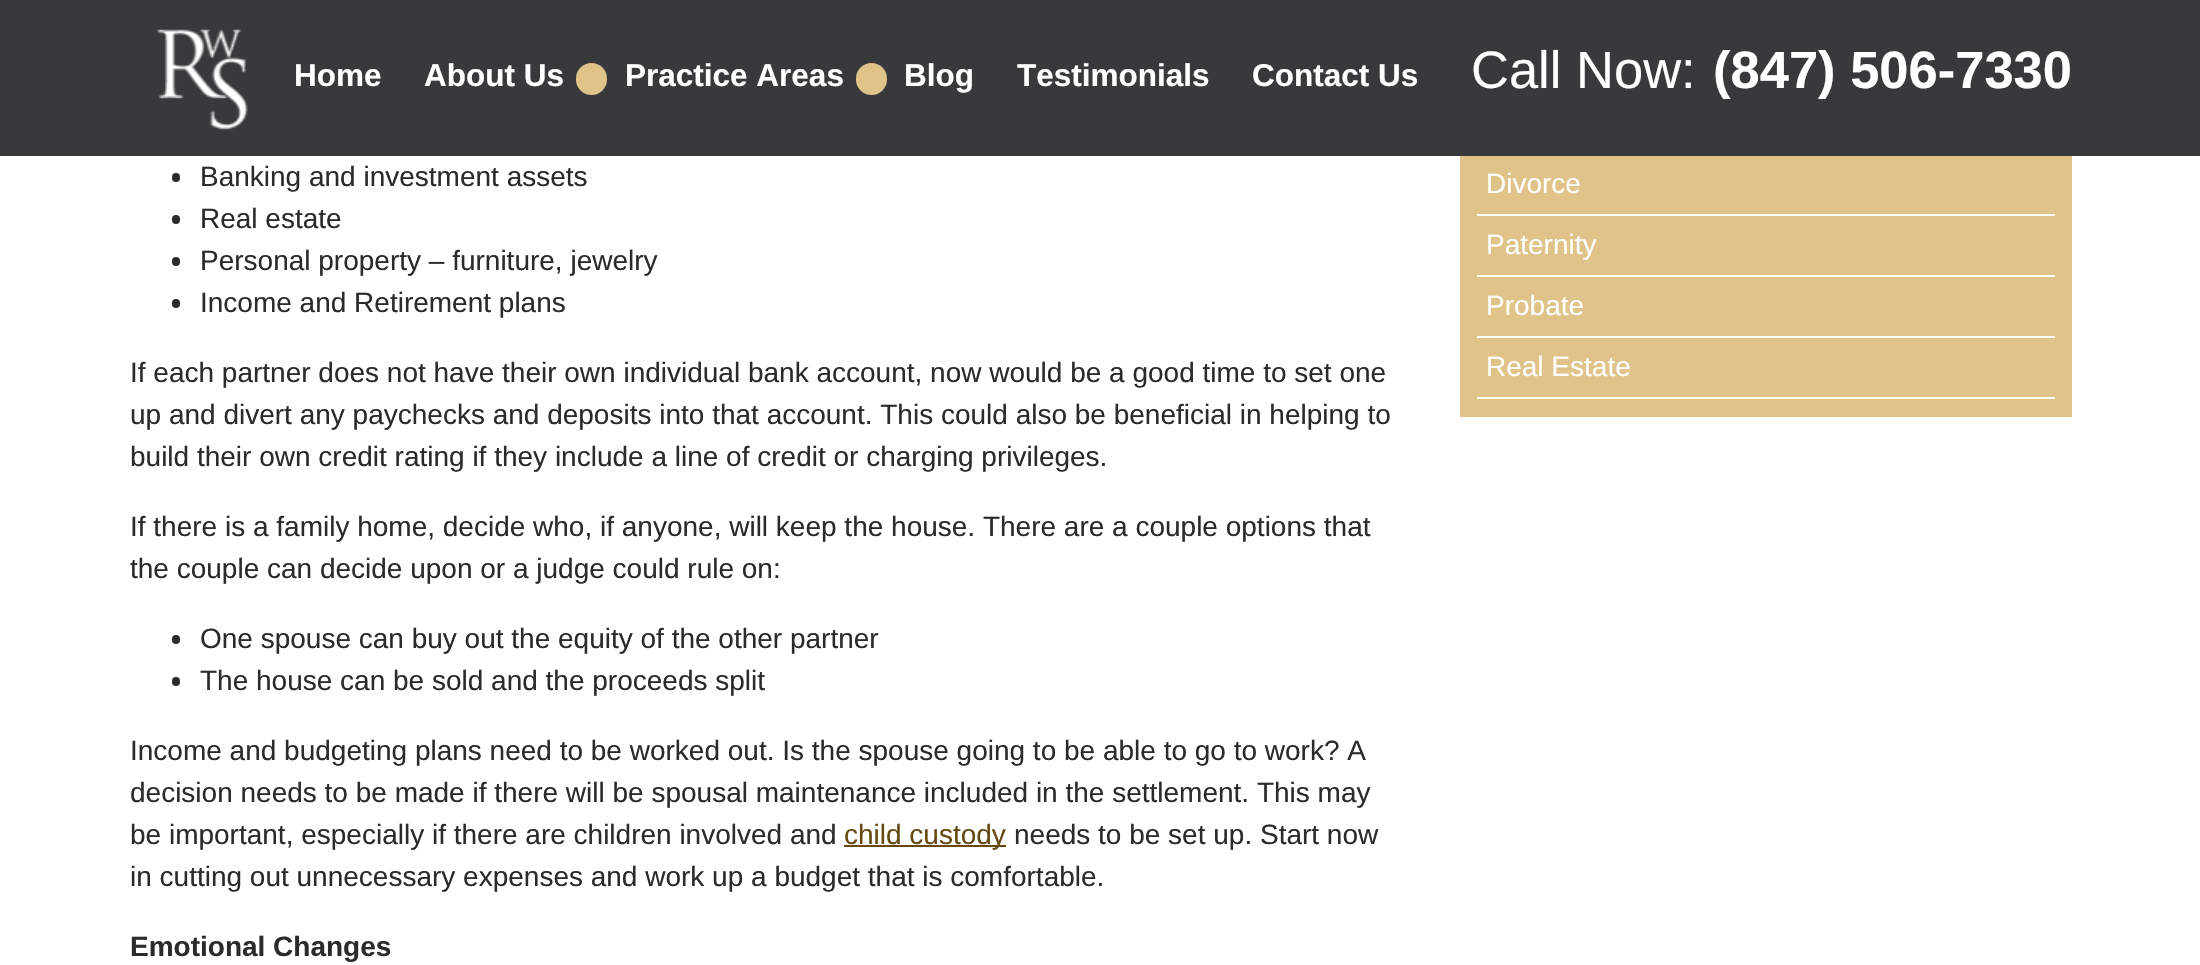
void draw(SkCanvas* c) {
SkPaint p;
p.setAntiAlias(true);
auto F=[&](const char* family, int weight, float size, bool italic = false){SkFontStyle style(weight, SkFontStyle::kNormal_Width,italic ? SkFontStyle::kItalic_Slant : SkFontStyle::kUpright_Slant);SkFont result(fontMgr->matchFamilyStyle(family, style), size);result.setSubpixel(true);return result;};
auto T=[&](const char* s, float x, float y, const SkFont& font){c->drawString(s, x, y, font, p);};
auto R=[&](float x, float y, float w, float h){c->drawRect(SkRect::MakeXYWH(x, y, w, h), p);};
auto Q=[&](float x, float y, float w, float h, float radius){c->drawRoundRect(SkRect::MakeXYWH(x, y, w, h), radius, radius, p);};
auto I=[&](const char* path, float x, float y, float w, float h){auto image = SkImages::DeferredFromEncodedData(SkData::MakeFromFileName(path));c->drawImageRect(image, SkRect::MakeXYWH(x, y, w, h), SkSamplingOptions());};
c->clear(0xffffffff);
p.setColor(0xff37393b);
R(0,0,2200,156);
I("1.png",157,29,91,101);
auto f1 = F("Liberation Sans",700,31.5);
p.setColor(0xffffffff);
T("Home",294,86,f1);
T("About Us",424,86,f1);
p.setColor(0xffe0c389);
Q(576,63,31,32,15.5);
p.setColor(0xffffffff);
T("Practice Areas",625,86,f1);
p.setColor(0xffe0c389);
Q(856,63,31,32,15.5);
p.setColor(0xffffffff);
T("Blog",904,86,f1);
T("Testimonials",1017,86,f1);
T("Contact Us",1252,86,f1);
auto f2 = F("Liberation Sans",400,52.5);
T("Call Now:",1471,88,f2);
auto f3 = F("Liberation Sans",700,52.5);
T("(847) 506-7330",1713,88,f3);
p.setColor(0xff292b2c);
Q(172,173,8,9,4);
auto f4 = F("Liberation Sans",400,28);
T("Banking and investment assets",200,186,f4);
Q(172,215,8,9,4);
T("Real estate",200,228,f4);
Q(172,257,8,9,4);
T("Personal property – furniture, jewelry",200,270,f4);
Q(172,299,8,9,4);
T("Income and Retirement plans",200,312,f4);
T("If each partner does not have their own individual bank account, now would be a good time to set one",130,382,f4);
T("up and divert any paychecks and deposits into that account. This could also be beneficial in helping to",130,424,f4);
T("build their own credit rating if they include a line of credit or charging privileges.",130,466,f4);
T("If there is a family home, decide who, if anyone, will keep the house. There are a couple options that",130,536,f4);
T("the couple can decide upon or a judge could rule on:",130,578,f4);
Q(172,635,8,9,4);
T("One spouse can buy out the equity of the other partner",200,648,f4);
Q(172,677,8,9,4);
T("The house can be sold and the proceeds split",200,690,f4);
T("Income and budgeting plans need to be worked out. Is the spouse going to be able to go to work? A",130,760,f4);
T("decision needs to be made if there will be spousal maintenance included in the settlement. This may",130,802,f4);
T("be important, especially if there are children involved and",130,844,f4);
p.setColor(0xff654910);
R(844,845,162,2);
T("child custody",844,844,f4);
p.setColor(0xff292b2c);
T("needs to be set up. Start now",1014,844,f4);
T("in cutting out unnecessary expenses and work up a budget that is comfortable.",130,886,f4);
auto f5 = F("Liberation Sans",700,28);
T("Emotional Changes",130,956,f5);
p.setColor(0xffe0c389);
R(1460,156,612,261);
p.setColor(0xffffffff);
R(1477,214,578,2);
T("Divorce",1486,193,f4);
R(1477,275,578,2);
T("Paternity",1486,254,f4);
R(1477,336,578,2);
T("Probate",1486,315,f4);
R(1477,397,578,2);
T("Real Estate",1486,376,f4);
}
